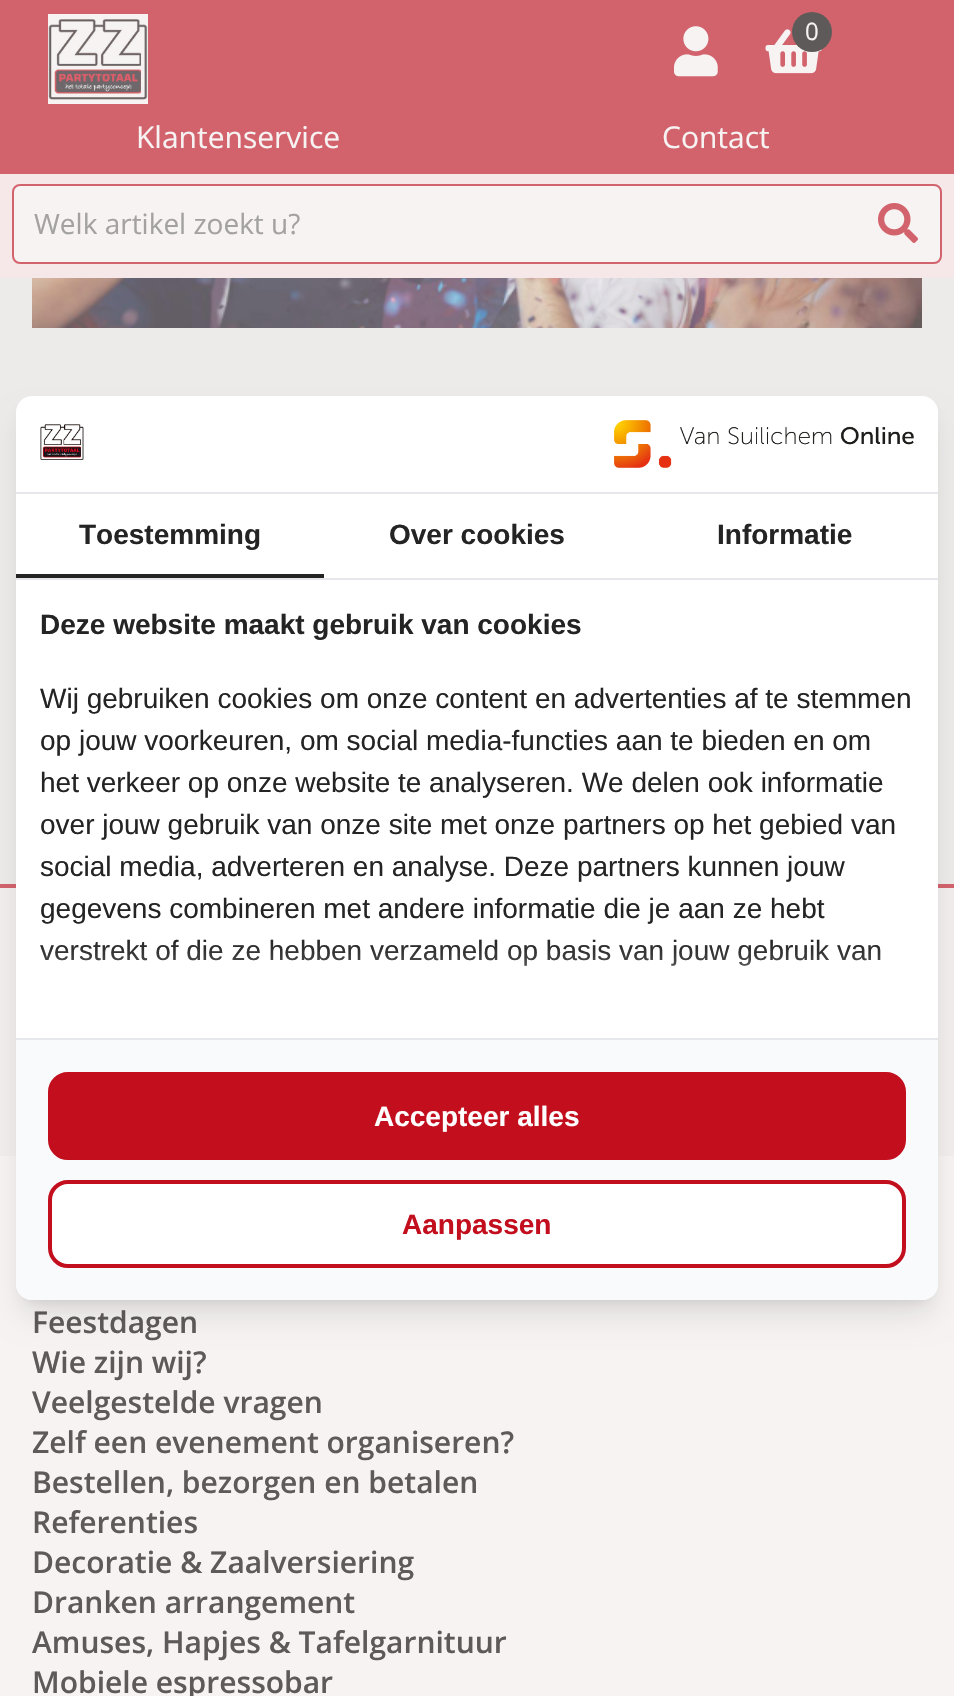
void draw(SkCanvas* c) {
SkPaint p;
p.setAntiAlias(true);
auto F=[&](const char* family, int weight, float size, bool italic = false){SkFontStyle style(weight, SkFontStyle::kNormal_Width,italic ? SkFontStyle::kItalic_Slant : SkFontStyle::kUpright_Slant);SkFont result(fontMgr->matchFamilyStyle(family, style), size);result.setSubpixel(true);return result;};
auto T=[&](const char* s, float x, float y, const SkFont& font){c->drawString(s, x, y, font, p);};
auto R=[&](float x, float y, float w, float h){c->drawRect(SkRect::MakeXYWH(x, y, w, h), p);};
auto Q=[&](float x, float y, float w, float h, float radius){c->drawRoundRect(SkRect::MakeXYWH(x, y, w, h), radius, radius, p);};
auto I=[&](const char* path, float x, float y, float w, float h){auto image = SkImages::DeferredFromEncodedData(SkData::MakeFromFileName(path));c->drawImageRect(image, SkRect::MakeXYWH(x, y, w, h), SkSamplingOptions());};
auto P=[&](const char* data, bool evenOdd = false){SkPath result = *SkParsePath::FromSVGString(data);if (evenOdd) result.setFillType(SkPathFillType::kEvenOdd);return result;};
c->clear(0xfff7f3f3);
p.setColor(0xfff6e7e8);
R(0,174,954,104);
p.setColor(0xffd2636c);
R(0,0,954,174);
I("1.png",48,14,100,90);
I("2.png",674,26,44,51);
I("3.png",765,29,57,45);
p.setColor(0xff5e5a5a);
c->drawCircle(812,32,20,p);
auto f1 = F("Open Sans",400,24);
p.setColor(0xfff7f3f3);
T("0",805,40,f1);
auto f2 = F("Open Sans",400,30);
T("Klantenservice",136,148,f2);
T("Contact",662,148,f2);
c->drawRoundRect(SkRect::MakeXYWH(13,185,928,78),7,7,p);
p.setStroke(true);
p.setStrokeWidth(2);
p.setColor(0xffd2636c);
c->drawRoundRect(SkRect::MakeXYWH(13,185,928,78),7,7,p);
auto f3 = F("Open Sans",400,28);
p.setStroke(false);
p.setColor(0xffa4a1a1);
T("Welk artikel zoekt u?",34,234,f3);
I("4.png",878,203,40,40);
p.setColor(0xffedeaea);
R(0,278,954,606);
I("5.png",32,278,890,50);
p.setColor(0xfff2eeee);
R(0,888,954,268);
p.setColor(0xffd2636c);
R(0,884,954,4);
auto f4 = F("Open Sans",600,30);
p.setColor(0xff5e5a5a);
T("Feestdagen",32,1333,f4);
T("Wie zijn wij?",32,1373,f4);
T("Veelgestelde vragen",32,1413,f4);
T("Zelf een evenement organiseren?",32,1453,f4);
T("Bestellen, bezorgen en betalen",32,1493,f4);
T("Referenties",32,1533,f4);
T("Decoratie & Zaalversiering",32,1573,f4);
T("Dranken arrangement",32,1613,f4);
T("Amuses, Hapjes & Tafelgarnituur",32,1653,f4);
T("Mobiele espressobar",32,1693,f4);
p.setColor(0x1a000000);
p.setMaskFilter(SkMaskFilter::MakeBlur(kNormal_SkBlurStyle, 6));
c->drawRoundRect(SkRect::MakeXYWH(24,412,906,888),8,8,p);
p.setMaskFilter(nullptr);
p.setMaskFilter(SkMaskFilter::MakeBlur(kNormal_SkBlurStyle, 15));
c->drawRoundRect(SkRect::MakeXYWH(22,422,910,892),10,10,p);
p.setMaskFilter(nullptr);
p.setColor(0xffffffff);
Q(16,396,922,904,16);
p.setColor(0xffe5e7eb);
R(16,492,922,2);
I("6.png",40,424,44,36);
I("7.png",614,420,300,48);
R(16,578,922,2);
p.setColor(0xff242424);
R(16,574,308,4);
auto f5 = F("Liberation Sans",700,28);
T("Toestemming",79,544,f5);
T("Over cookies",389,544,f5);
T("Informatie",717,544,f5);
T("Deze website maakt gebruik van cookies",40,634,f5);
auto f6 = F("Liberation Sans",400,28);
T("Wij gebruiken cookies om onze content en advertenties af te stemmen",40,708,f6);
T("op jouw voorkeuren, om social media-functies aan te bieden en om",40,750,f6);
T("het verkeer op onze website te analyseren. We delen ook informatie",40,792,f6);
T("over jouw gebruik van onze site met onze partners op het gebied van",40,834,f6);
T("social media, adverteren en analyse. Deze partners kunnen jouw",40,876,f6);
T("gegevens combineren met andere informatie die je aan ze hebt",40,918,f6);
T("verstrekt of die ze hebben verzameld op basis van jouw gebruik van",40,960,f6);
c->save();
c->clipPath(P("M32 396h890c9 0 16 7 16 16v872c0 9-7 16-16 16h-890c-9 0-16-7-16-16v-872c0-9 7-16 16-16z"),true);
p.setColor(0xffffffff);
p.setMaskFilter(SkMaskFilter::MakeBlur(kNormal_SkBlurStyle, 20));
c->drawRect(SkRect::MakeXYWH(0,982,954,294),p);
p.setMaskFilter(nullptr);
c->restore();
p.setColor(0xfff9fafb);
c->drawPath(P("M16 1038h922v246c0 9-7 16-16 16h-890c-9 0-16-7-16-16z"),p);
p.setColor(0xffe5e7eb);
R(16,1038,922,2);
p.setColor(0xffc20e1d);
c->drawRoundRect(SkRect::MakeXYWH(50,1074,854,84),18,18,p);
p.setStroke(true);
p.setStrokeWidth(4);
c->drawRoundRect(SkRect::MakeXYWH(50,1074,854,84),18,18,p);
p.setStroke(false);
p.setColor(0xffffffff);
T("Accepteer alles",374,1126,f5);
c->drawRoundRect(SkRect::MakeXYWH(50,1182,854,84),18,18,p);
p.setStroke(true);
p.setColor(0xffc20e1d);
c->drawRoundRect(SkRect::MakeXYWH(50,1182,854,84),18,18,p);
p.setStroke(false);
T("Aanpassen",402,1234,f5);
}
